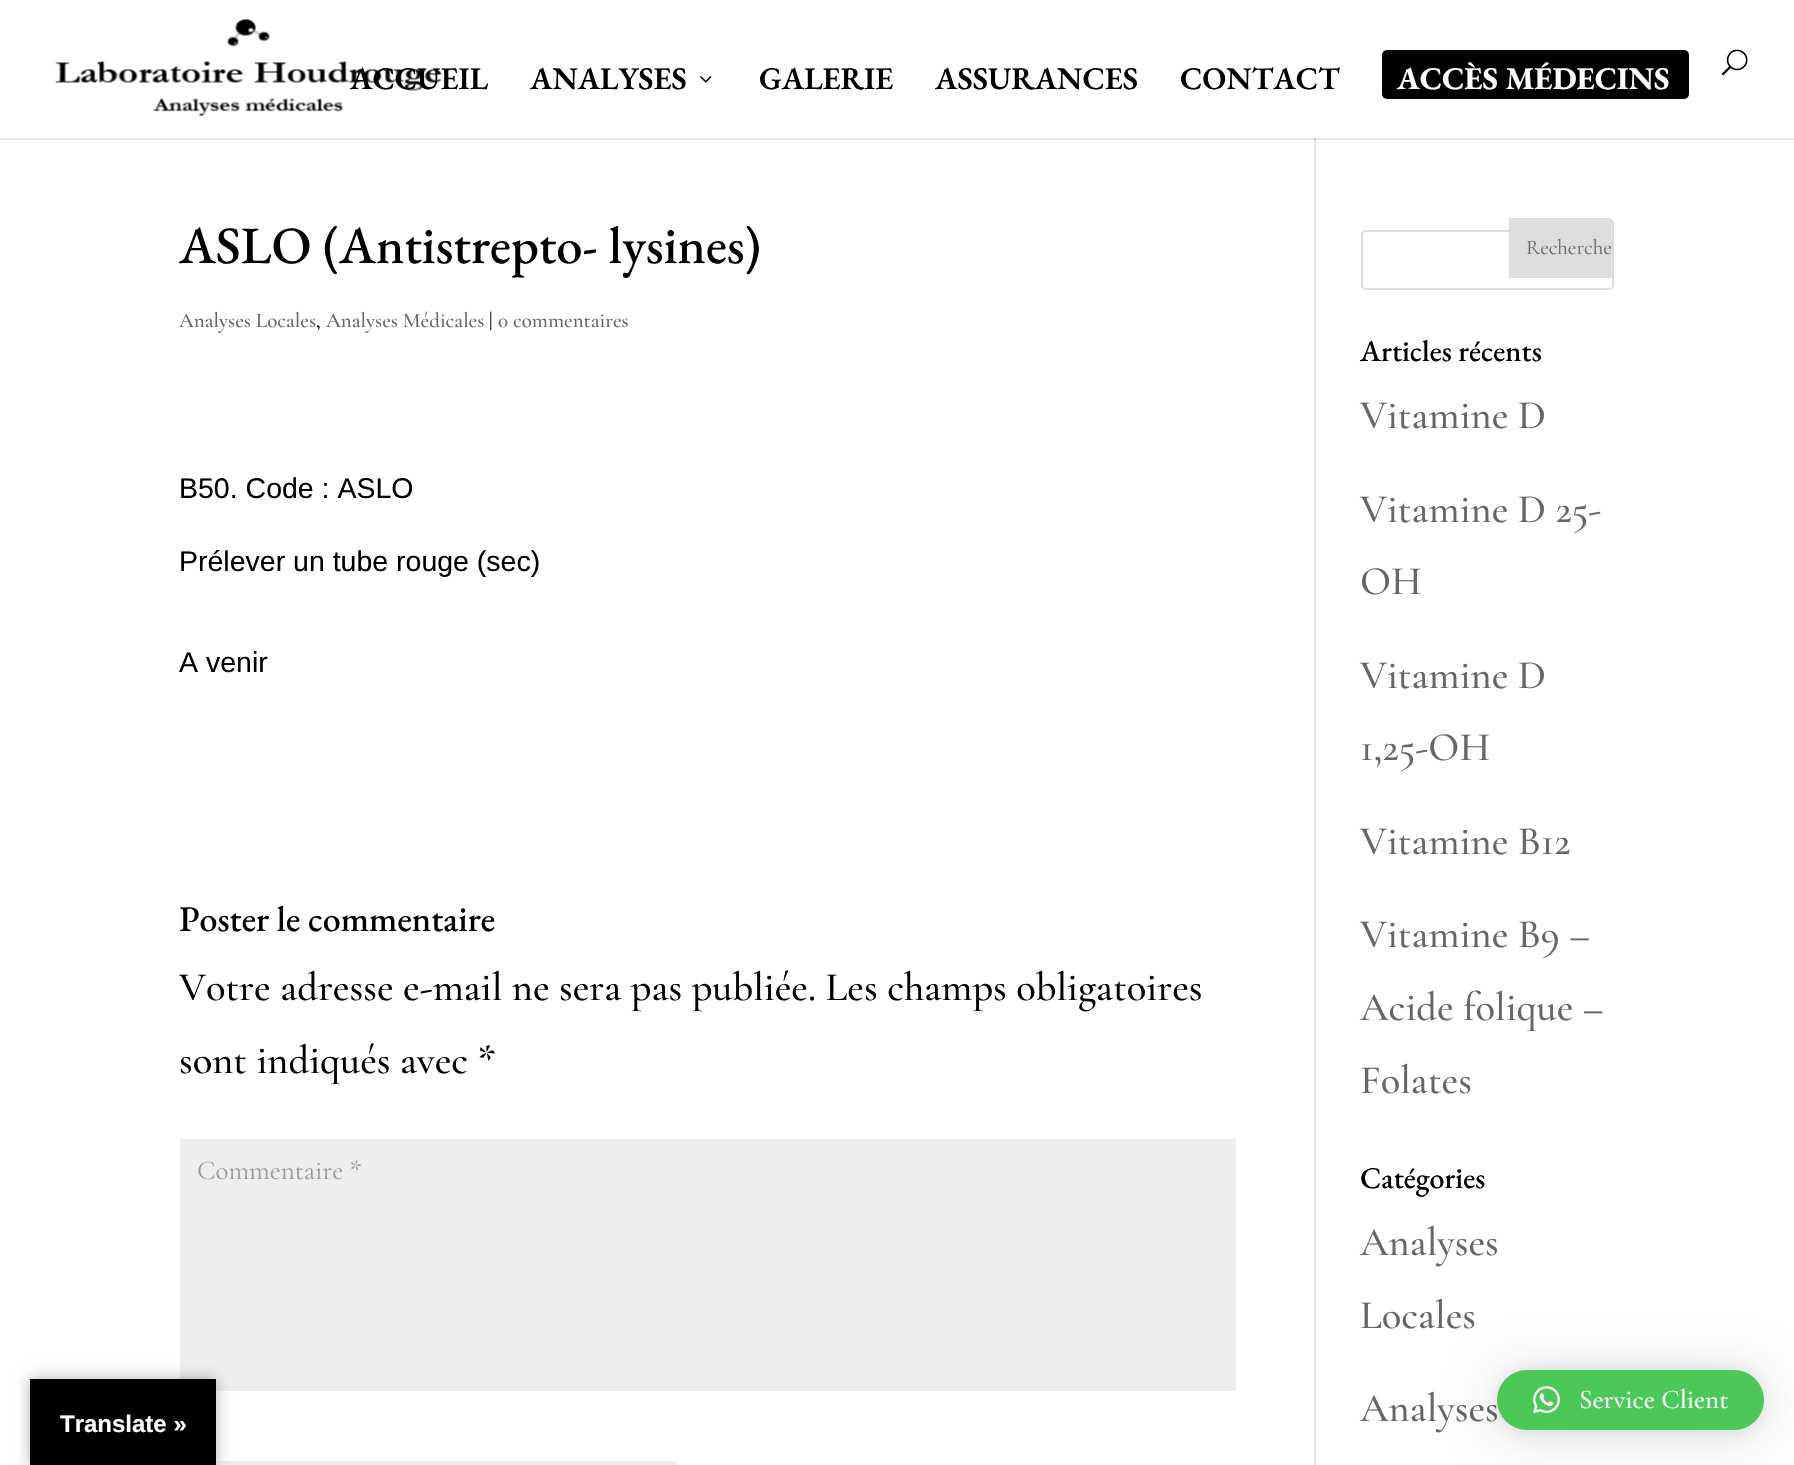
void draw(SkCanvas* c) {
SkPaint p;
p.setAntiAlias(true);
auto F=[&](const char* family, int weight, float size, bool italic = false){SkFontStyle style(weight, SkFontStyle::kNormal_Width,italic ? SkFontStyle::kItalic_Slant : SkFontStyle::kUpright_Slant);SkFont result(fontMgr->matchFamilyStyle(family, style), size);result.setSubpixel(true);return result;};
auto T=[&](const char* s, float x, float y, const SkFont& font){c->drawString(s, x, y, font, p);};
auto R=[&](float x, float y, float w, float h){c->drawRect(SkRect::MakeXYWH(x, y, w, h), p);};
auto Q=[&](float x, float y, float w, float h, float radius){c->drawRoundRect(SkRect::MakeXYWH(x, y, w, h), radius, radius, p);};
auto I=[&](const char* path, float x, float y, float w, float h){auto image = SkImages::DeferredFromEncodedData(SkData::MakeFromFileName(path));c->drawImageRect(image, SkRect::MakeXYWH(x, y, w, h), SkSamplingOptions());};
auto P=[&](const char* data, bool evenOdd = false){SkPath result = *SkParsePath::FromSVGString(data);if (evenOdd) result.setFillType(SkPathFillType::kEvenOdd);return result;};
c->clear(0xffffffff);
p.setColor(0xffe6e6e6);
R(0,138,1794,2);
I("1.png",55,19,387,98);
auto f1 = F("EB Garamond",600,31.5);
p.setColor(0xff000000);
T("ACCUEIL",350,89,f1);
T("ANALYSES",530,89,f1);
I("2.png",700,76,12,7);
T("GALERIE",759,89,f1);
T("ASSURANCES",935,89,f1);
T("CONTACT",1180,89,f1);
Q(1382,50,307,49,5);
auto f2 = F("EB Garamond",700,31.5);
p.setColor(0xffffffff);
T("ACCÈS MÉDECINS",1397,89,f2);
I("3.png",1721,49,27,27);
p.setColor(0xffe2e2e2);
R(1314,140,2,1325);
p.setColor(0xffcbcbcb);
R(1314,138,2,2);
auto f3 = F("EB Garamond",500,52.5);
p.setColor(0xff000000);
T("ASLO (Antistrepto- lysines)",179,263,f3);
auto f4 = F("Cormorant Garamond",500,21);
p.setColor(0xff666666);
T("Analyses Locales",179,327,f4);
p.setColor(0xff000000);
T(",",316,327,f4);
p.setColor(0xff666666);
T("Analyses Médicales",326,327,f4);
p.setColor(0xff000000);
T("|",489,327,f4);
p.setColor(0xff666666);
T("0 commentaires",498,327,f4);
auto f5 = F("Liberation Sans",400,28.5);
p.setColor(0xff000000);
T("B50. Code : ASLO",179,498,f5);
T("Prélever un tube rouge (sec)",179,571,f5);
T("A venir",179,672,f5);
auto f6 = F("EB Garamond",500,36);
T("Poster le commentaire",179,931,f6);
auto f7 = F("Cormorant Garamond",500,40.5);
T("Votre adresse e-mail ne sera pas publiée. Les champs obligatoires",179,1000,f7);
T("sont indiqués avec *",179,1073,f7);
p.setColor(0xffeeeeee);
R(180,1139,1056,252);
auto f8 = F("Cormorant Garamond",400,27);
p.setColor(0xff999999);
T("Commentaire *",197,1179,f8);
p.setColor(0xffeeeeee);
R(216,1461,461,4);
p.setStroke(true);
p.setStrokeWidth(2);
p.setColor(0xffdddddd);
c->drawRoundRect(SkRect::MakeXYWH(1362,231,251,58),4,4,p);
p.setStroke(false);
c->drawPath(P("M1510 219h99c2 0 4 2 4 4v50c0 2-2 4-4 4h-99z"),p);
p.setStroke(true);
c->drawPath(P("M1510 219h99c2 0 4 2 4 4v50c0 2-2 4-4 4h-99z"),p);
auto f9 = F("Cormorant Garamond",400,21);
p.setStroke(false);
p.setColor(0xff666666);
T("Recherche",1526,254,f9);
auto f10 = F("EB Garamond",500,30);
p.setColor(0xff000000);
T("Articles récents",1360,361,f10);
p.setColor(0xff666666);
T("Vitamine D",1360,428,f7);
T("Vitamine D 25-",1360,522,f7);
T("OH",1360,594,f7);
T("Vitamine D",1360,688,f7);
T("1,25-OH",1360,760,f7);
T("Vitamine B12",1360,854,f7);
T("Vitamine B9 –",1360,947,f7);
T("Acide folique –",1360,1020,f7);
T("Folates",1360,1093,f7);
p.setColor(0xff000000);
T("Catégories",1360,1188,f10);
p.setColor(0xff666666);
T("Analyses",1360,1255,f7);
T("Locales",1360,1328,f7);
T("Analyses",1360,1421,f7);
p.setColor(0x29000000);
p.setMaskFilter(SkMaskFilter::MakeBlur(kNormal_SkBlurStyle, 24));
c->drawRoundRect(SkRect::MakeXYWH(1497,1373,267,60),30,30,p);
p.setMaskFilter(nullptr);
p.setColor(0x0f000000);
p.setMaskFilter(SkMaskFilter::MakeBlur(kNormal_SkBlurStyle, 4.5));
c->drawRoundRect(SkRect::MakeXYWH(1497,1371,267,60),30,30,p);
p.setMaskFilter(nullptr);
p.setColor(0xff4ac959);
Q(1497,1370,267,60,30);
I("4.png",1533,1386,27,28);
auto f11 = F("Cormorant Garamond",500,27);
p.setColor(0xffffffff);
T("Service Client",1579,1408,f11);
p.setColor(0x4d000000);
p.setMaskFilter(SkMaskFilter::MakeBlur(kNormal_SkBlurStyle, 7));
c->drawRect(SkRect::MakeXYWH(30,1379,186,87),p);
p.setMaskFilter(nullptr);
p.setColor(0xff000000);
R(30,1379,186,86);
auto f12 = F("Liberation Sans",700,24);
p.setColor(0xffffffff);
T("Translate »",60,1432,f12);
}
